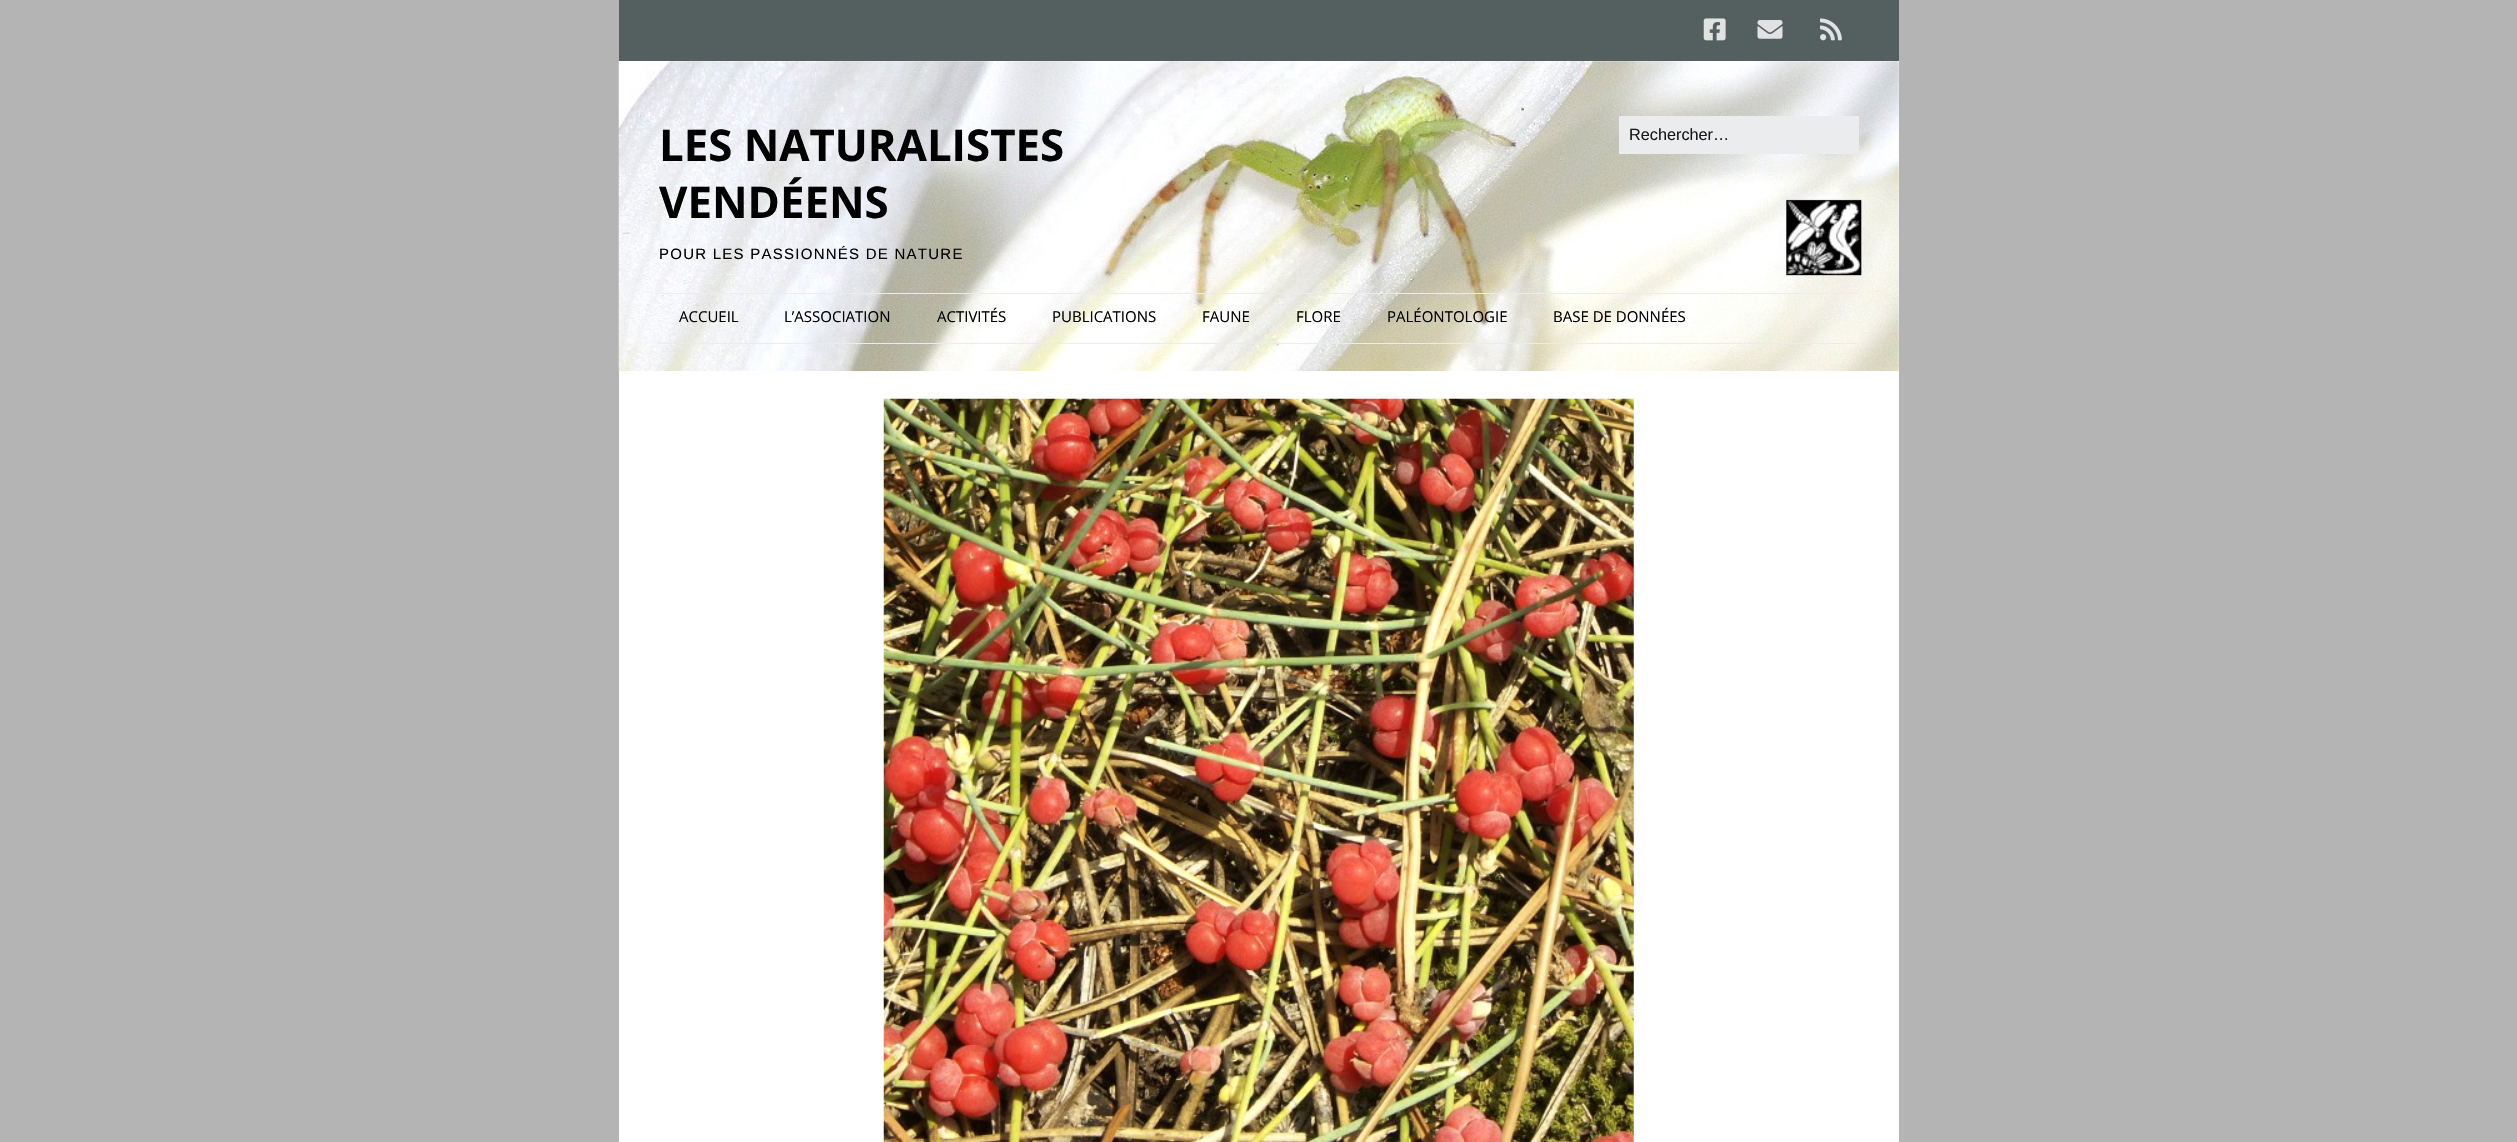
void draw(SkCanvas* c) {
SkPaint p;
p.setAntiAlias(true);
auto F=[&](const char* family, int weight, float size, bool italic = false){SkFontStyle style(weight, SkFontStyle::kNormal_Width,italic ? SkFontStyle::kItalic_Slant : SkFontStyle::kUpright_Slant);SkFont result(fontMgr->matchFamilyStyle(family, style), size);result.setSubpixel(true);return result;};
auto T=[&](const char* s, float x, float y, const SkFont& font){c->drawString(s, x, y, font, p);};
auto L=[&](const char* s, float x, float y, const SkFont& font, const SkPaint& ink, float letter, float word){std::vector<SkGlyphID> glyphs(font.countText(s, strlen(s), SkTextEncoding::kUTF8));std::vector<float> xs(glyphs.size());font.textToGlyphs(s, strlen(s), SkTextEncoding::kUTF8, glyphs);font.getXPos(glyphs, xs, x);float extra = 0;for (size_t i = 0; i < glyphs.size(); i++) {xs[i] += extra;extra += letter + word * (glyphs[i] == font.unicharToGlyph(' '));}c->drawTextBlob(SkTextBlob::MakeFromPosHGlyphs(glyphs, xs, y, font), 0, 0, ink);};
auto R=[&](float x, float y, float w, float h){c->drawRect(SkRect::MakeXYWH(x, y, w, h), p);};
auto I=[&](const char* path, float x, float y, float w, float h){auto image = SkImages::DeferredFromEncodedData(SkData::MakeFromFileName(path));c->drawImageRect(image, SkRect::MakeXYWH(x, y, w, h), SkSamplingOptions());};
c->clear(0xffb4b4b4);
p.setColor(0xff546060);
R(619,0,1280,61);
I("1.png",1703,18,23,23);
I("2.png",1757,20,26,19);
I("3.png",1820,18,22,23);
p.setColor(0xffffffff);
R(619,61,1280,310);
I("4.png",618,61,1281,311);
auto f1 = F("Open Sans",700,43.75);
p.setColor(0xff000000);
T("LES NATURALISTES",659,161,f1);
T("VENDÉENS",659,218,f1);
auto f2 = F("Liberation Sans",400,15);
L("POUR LES PASSIONNÉS DE NATURE",659,259,f2,p,1.25,0);
p.setColor(0xffeaecee);
R(1619,116,240,38);
auto f3 = F("Liberation Sans",400,16.25);
p.setColor(0xff171717);
T("Rechercher…",1629,140,f3);
p.setColor(0xffeaecee);
R(659,293,1200,1);
R(659,343,1200,1);
auto f4 = F("Open Sans",400,15);
p.setColor(0xff000000);
T("ACCUEIL",679,322,f4);
T("L’ASSOCIATION",784,322,f4);
T("ACTIVITÉS",937,322,f4);
T("PUBLICATIONS",1052,322,f4);
T("FAUNE",1202,322,f4);
T("FLORE",1296,322,f4);
T("PALÉONTOLOGIE",1387,322,f4);
T("BASE DE DONNÉES",1553,322,f4);
p.setColor(0xffffffff);
R(619,371,1280,771);
I("5.png",883,398,751,744);
}
